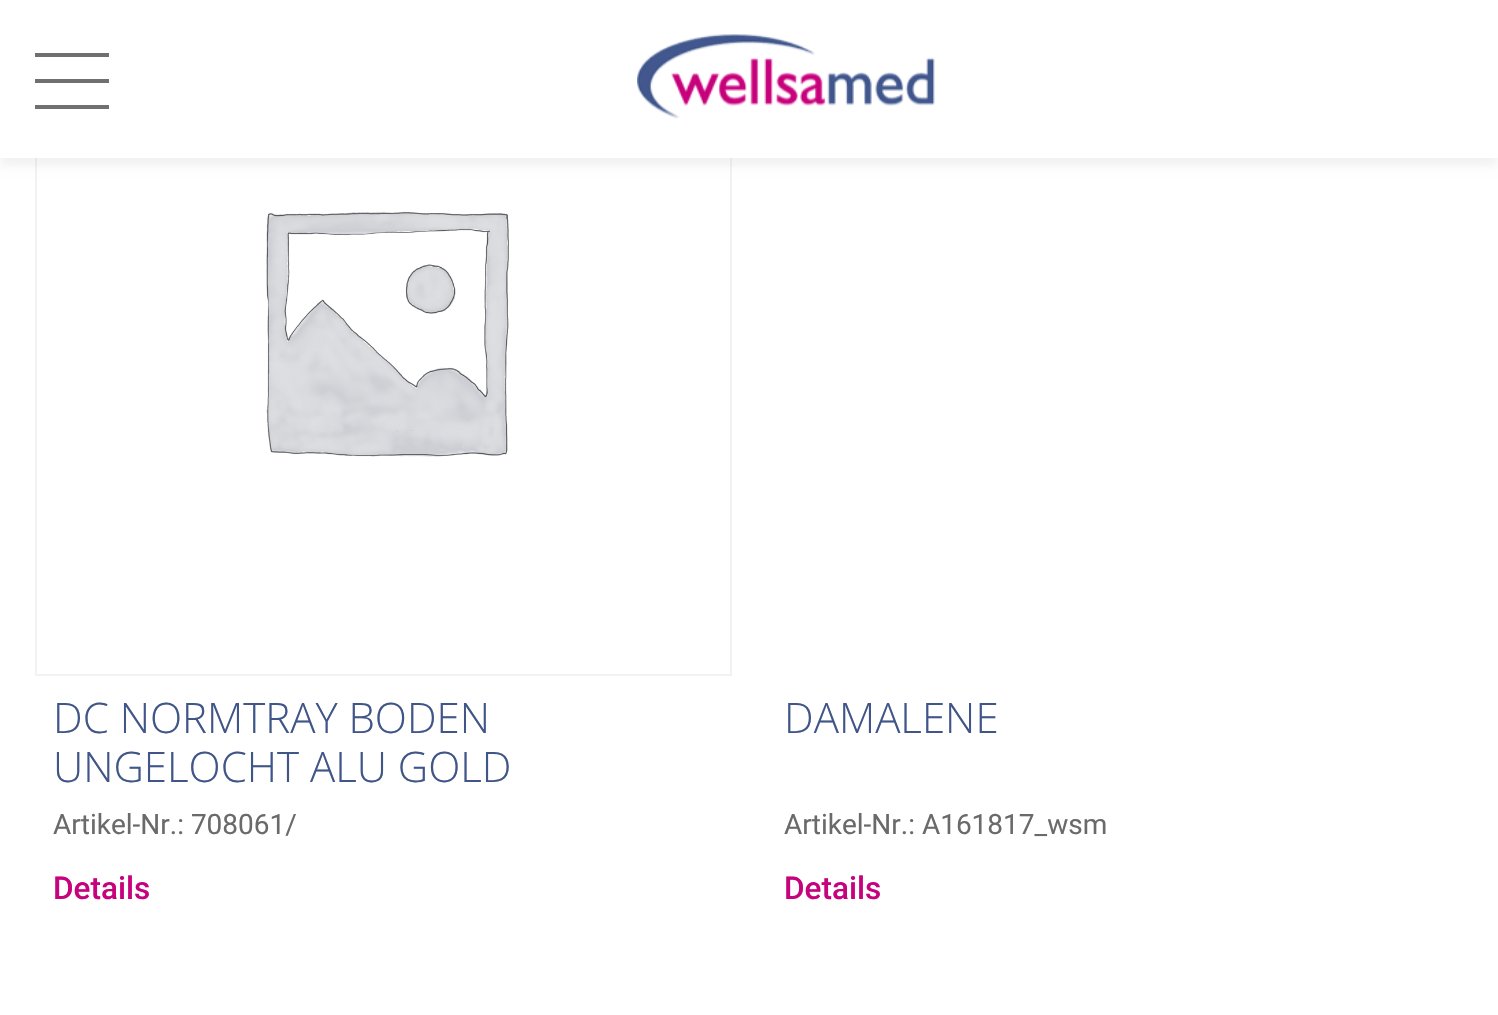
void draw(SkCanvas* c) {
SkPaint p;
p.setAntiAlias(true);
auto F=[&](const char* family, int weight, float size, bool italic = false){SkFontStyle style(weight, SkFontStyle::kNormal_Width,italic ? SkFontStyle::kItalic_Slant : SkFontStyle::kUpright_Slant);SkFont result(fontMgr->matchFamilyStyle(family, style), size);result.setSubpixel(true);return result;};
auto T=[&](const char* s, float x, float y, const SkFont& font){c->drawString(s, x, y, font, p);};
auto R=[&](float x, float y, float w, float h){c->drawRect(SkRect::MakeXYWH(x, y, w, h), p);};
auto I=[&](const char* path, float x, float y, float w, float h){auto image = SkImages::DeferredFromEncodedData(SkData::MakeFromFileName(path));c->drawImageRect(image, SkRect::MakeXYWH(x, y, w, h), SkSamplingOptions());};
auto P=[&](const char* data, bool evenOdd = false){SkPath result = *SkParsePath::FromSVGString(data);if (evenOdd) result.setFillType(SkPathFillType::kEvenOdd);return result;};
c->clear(0xffffffff);
p.setStroke(true);
p.setStrokeWidth(2);
p.setColor(0xfff2f2f2);
c->drawRect(SkRect::MakeXYWH(36,-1,695,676),p);
c->save();
c->clipPath(P("M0 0h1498v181h-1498zm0 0h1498v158h-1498z",true),true);
p.setStroke(false);
p.setColor(0x0d000000);
p.setMaskFilter(SkMaskFilter::MakeBlur(kNormal_SkBlurStyle, 4.5));
c->drawRect(SkRect::MakeXYWH(0,9,1498,157),p);
p.setMaskFilter(nullptr);
c->restore();
p.setColor(0xf2ffffff);
R(0,0,1498,158);
p.setColor(0xff707070);
R(35,79,74,4);
R(35,53,74,4);
R(35,105,74,4);
I("1.png",637,34,298,85);
I("2.png",266,211,243,246);
auto f1 = F("Open Sans",300,42);
p.setColor(0xff405588);
T("DC NORMTRAY BODEN",53,733,f1);
T("UNGELOCHT ALU GOLD",53,782,f1);
auto f2 = F("Roboto",400,28);
p.setColor(0xff6a6a6a);
T("Artikel-Nr.: 708061/",53,834,f2);
auto f3 = F("Roboto",500,31.5);
p.setColor(0xffc6037d);
T("Details",53,899,f3);
p.setColor(0xff405588);
T("DAMALENE",784,733,f1);
p.setColor(0xff6a6a6a);
T("Artikel-Nr.: A161817_wsm",784,834,f2);
p.setColor(0xffc6037d);
T("Details",784,899,f3);
}
